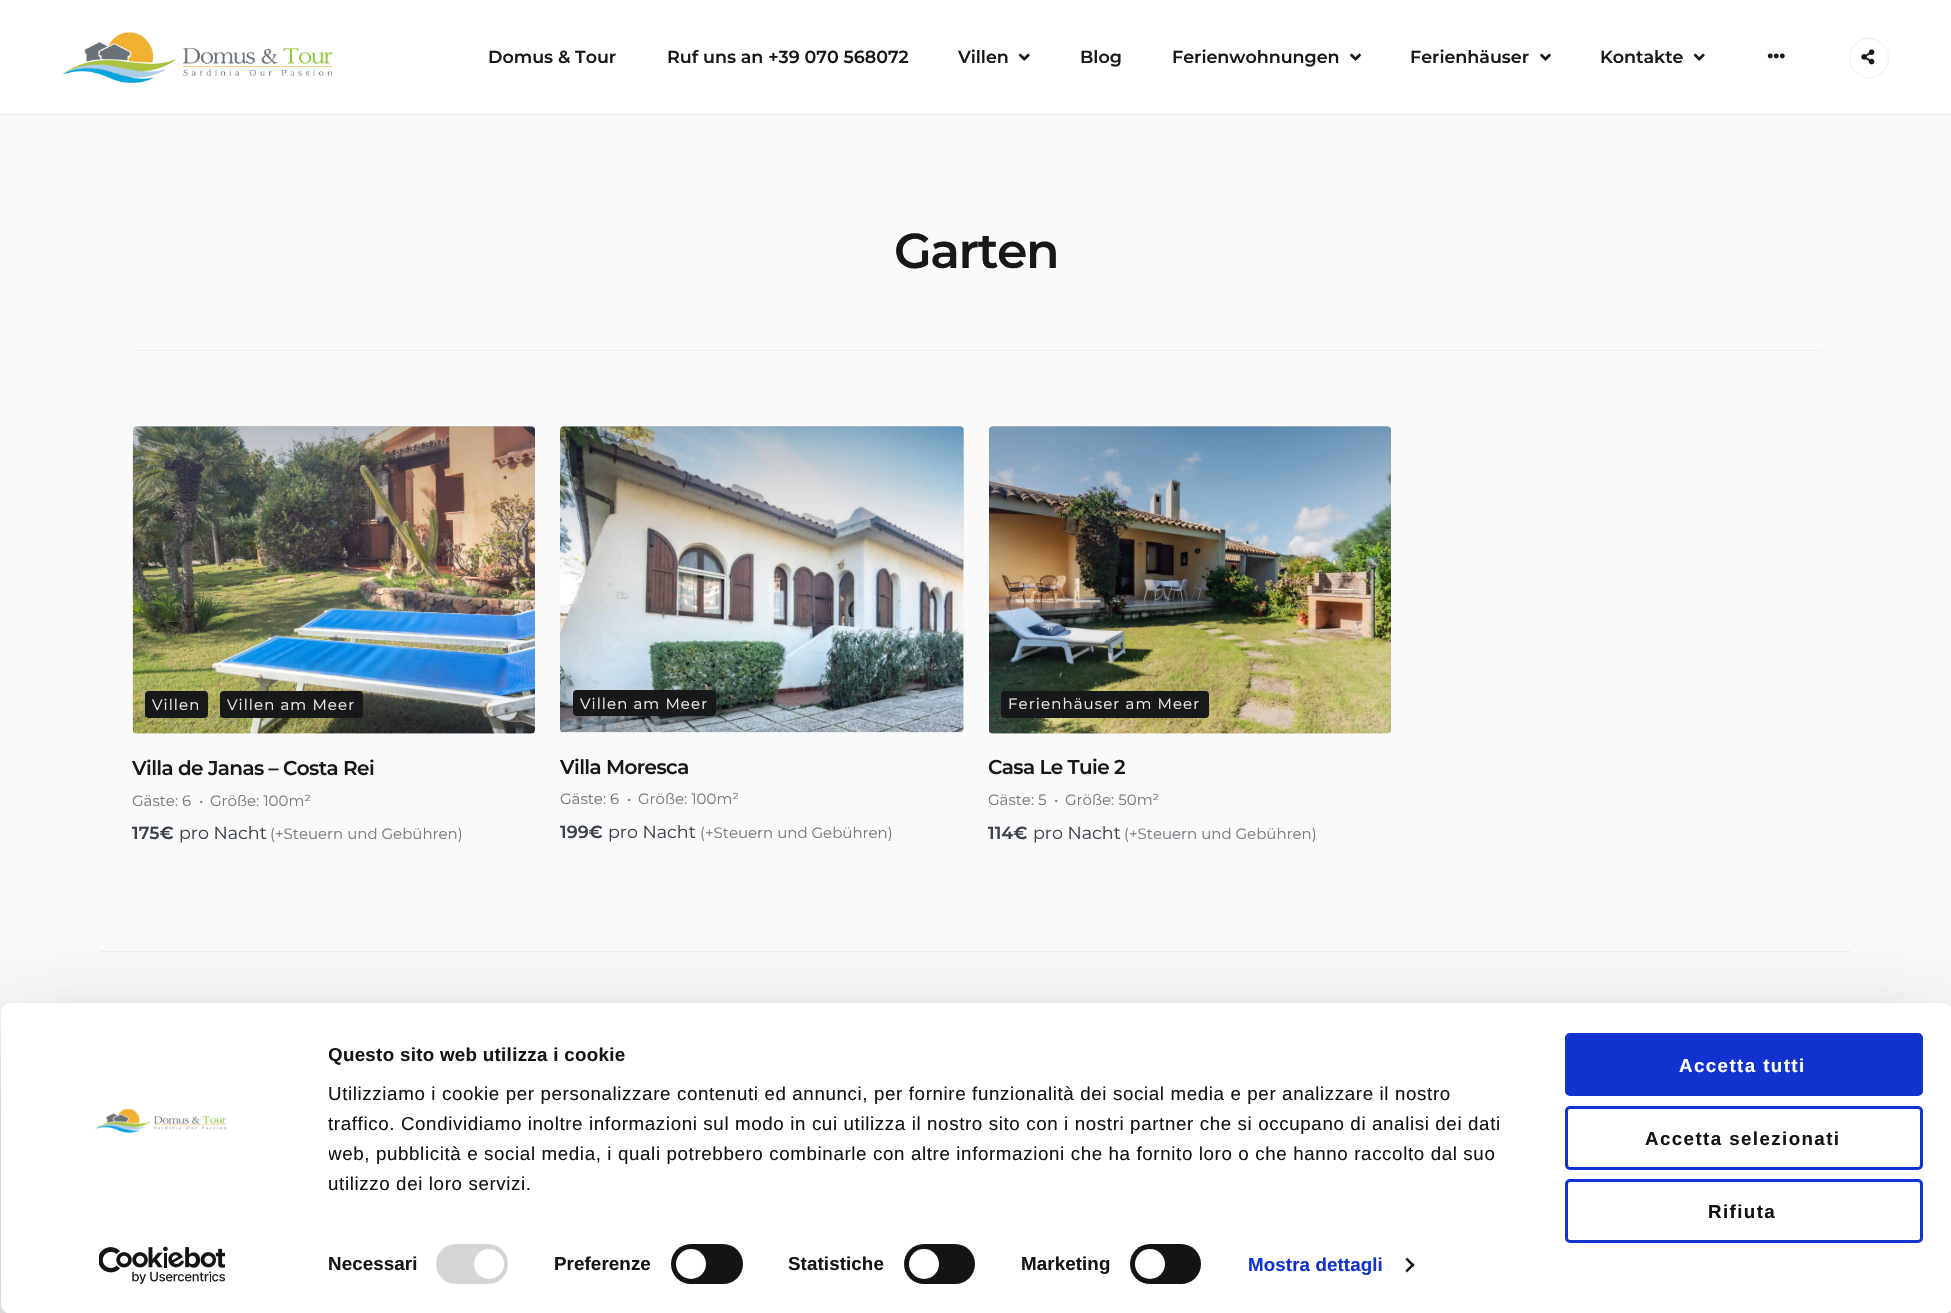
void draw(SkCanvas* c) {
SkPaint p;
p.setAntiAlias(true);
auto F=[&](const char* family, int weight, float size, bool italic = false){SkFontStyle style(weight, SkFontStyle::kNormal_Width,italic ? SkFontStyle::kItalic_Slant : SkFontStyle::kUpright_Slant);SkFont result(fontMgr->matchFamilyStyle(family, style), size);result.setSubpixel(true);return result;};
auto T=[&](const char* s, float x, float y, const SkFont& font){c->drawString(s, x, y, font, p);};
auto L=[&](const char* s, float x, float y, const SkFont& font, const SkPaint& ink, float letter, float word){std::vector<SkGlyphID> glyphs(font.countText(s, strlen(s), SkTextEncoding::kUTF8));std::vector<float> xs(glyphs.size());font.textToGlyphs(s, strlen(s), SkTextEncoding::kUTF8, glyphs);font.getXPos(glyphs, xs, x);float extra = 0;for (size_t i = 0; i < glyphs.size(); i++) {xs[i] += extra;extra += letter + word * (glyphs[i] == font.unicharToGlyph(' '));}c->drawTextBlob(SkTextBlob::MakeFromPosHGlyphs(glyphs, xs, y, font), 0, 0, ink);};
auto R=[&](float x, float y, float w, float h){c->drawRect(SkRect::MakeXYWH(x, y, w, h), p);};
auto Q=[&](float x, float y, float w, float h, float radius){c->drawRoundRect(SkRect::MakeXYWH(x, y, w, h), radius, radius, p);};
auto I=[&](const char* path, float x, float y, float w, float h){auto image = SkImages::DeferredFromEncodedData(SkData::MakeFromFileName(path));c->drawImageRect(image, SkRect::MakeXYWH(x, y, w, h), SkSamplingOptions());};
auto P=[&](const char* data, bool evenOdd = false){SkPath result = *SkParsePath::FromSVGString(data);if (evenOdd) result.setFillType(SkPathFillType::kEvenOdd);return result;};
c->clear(0xfffafafa);
p.setColor(0xffffffff);
R(0,0,1951,114);
I("1.png",62,32,271,52);
auto f1 = F("Montserrat",600,17.5);
p.setColor(0xff17181a);
T("Domus & Tour",488,63,f1);
T("Ruf uns an +39 070 568072",667,63,f1);
T("Villen",958,63,f1);
I("2.png",1018,53,12,8);
T("Blog",1080,63,f1);
T("Ferienwohnungen",1172,63,f1);
I("3.png",1350,53,11,8);
T("Ferienhäuser",1410,63,f1);
I("3.png",1540,53,11,8);
T("Kontakte",1600,63,f1);
I("2.png",1693,53,12,8);
I("4.png",1767,53,18,6);
p.setStroke(true);
p.setStrokeWidth(1);
p.setColor(0xffededed);
c->drawCircle(1869,58,19.5,p);
I("5.png",1861,49,14,16);
p.setStroke(false);
p.setColor(0xffe8e8e8);
R(0,114,1951,1);
p.setColor(0xffededed);
R(133,350,1687,1);
auto f2 = F("Montserrat",600,49);
p.setColor(0xff17181a);
L("Garten",894,268,f2,p,-1.5,0);
I("6.png",132,426,403,308);
{
const SkColor colors[] = {0x4d34353e,0x0034353e};
const float stops[] = {0,1};
const SkPoint ends[] = {{334,426}, {334,580}};
p.setShader(SkGradientShader::MakeLinear(ends, colors, stops, 2, SkTileMode::kClamp));
p.setAlpha(255);
}
c->drawPath(P("M137 426h394c2 0 4 2 4 4v150h-402v-150c0-2 2-4 4-4z"),p);
p.setShader(nullptr);
p.setColor(0xff17181a);
Q(145,691,63,27,4);
auto f3 = F("Montserrat",400,15);
p.setColor(0xffebebec);
L("Villen",152,710,f3,p,1.1,0);
p.setColor(0xff17181a);
Q(220,691,143,27,4);
p.setColor(0xffebebec);
L("Villen am Meer",227,710,f3,p,1.1,0);
auto f4 = F("Montserrat",600,20);
p.setColor(0xff17181a);
L("Villa de Janas – Costa Rei",132,775,f4,p,-.6,0);
p.setColor(0xff767b80);
T("Gäste: 6",132,806,f3);
T("•",199,806,f3);
T("Größe: 100m²",210,806,f3);
p.setColor(0xff3b4249);
T("175€",132,839,f1);
auto f5 = F("Montserrat",400,17.5);
T("pro Nacht",179,839,f5);
p.setColor(0xff767b80);
T("(+Steuern und Gebühren)",270,839,f3);
I("7.png",560,426,404,307);
{
const SkColor colors[] = {0x4d34353e,0x0034353e};
const float stops[] = {0,1};
const SkPoint ends[] = {{762,426}, {762,579}};
p.setShader(SkGradientShader::MakeLinear(ends, colors, stops, 2, SkTileMode::kClamp));
p.setAlpha(255);
}
c->drawPath(P("M564 426h396c2 0 4 2 4 4v149h-404v-149c0-2 2-4 4-4z"),p);
p.setShader(nullptr);
p.setColor(0xff17181a);
Q(573,690,143,26,4);
p.setColor(0xffebebec);
L("Villen am Meer",580,709,f3,p,1.1,0);
p.setColor(0xff17181a);
L("Villa Moresca",560,774,f4,p,-.6,0);
p.setColor(0xff767b80);
T("Gäste: 6",560,804,f3);
T("•",627,804,f3);
T("Größe: 100m²",638,804,f3);
p.setColor(0xff3b4249);
T("199€",560,838,f1);
T("pro Nacht",608,838,f5);
p.setColor(0xff767b80);
T("(+Steuern und Gebühren)",700,838,f3);
I("8.png",989,426,402,308);
{
const SkColor colors[] = {0x4d34353e,0x0034353e};
const float stops[] = {0,1};
const SkPoint ends[] = {{1190,426}, {1190,580}};
p.setShader(SkGradientShader::MakeLinear(ends, colors, stops, 2, SkTileMode::kClamp));
p.setAlpha(255);
}
c->drawPath(P("M993 426h394c2 0 4 2 4 4v150h-402v-150c0-2 2-4 4-4z"),p);
p.setShader(nullptr);
p.setColor(0xff17181a);
Q(1001,691,208,27,4);
p.setColor(0xffebebec);
L("Ferienhäuser am Meer",1008,709,f3,p,1.1,0);
p.setColor(0xff17181a);
L("Casa Le Tuie 2",988,774,f4,p,-.6,0);
p.setColor(0xff767b80);
T("Gäste: 5",988,805,f3);
T("•",1054,805,f3);
T("Größe: 50m²",1065,805,f3);
p.setColor(0xff3b4249);
T("114€",988,839,f1);
T("pro Nacht",1033,839,f5);
p.setColor(0xff767b80);
T("(+Steuern und Gebühren)",1124,839,f3);
p.setColor(0xffededed);
R(100,951,1751,1);
p.setColor(0x4d000000);
p.setMaskFilter(SkMaskFilter::MakeBlur(kNormal_SkBlurStyle, 44));
c->drawRoundRect(SkRect::MakeXYWH(1,1040,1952,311),10,10,p);
p.setMaskFilter(nullptr);
p.setColor(0xffffffff);
Q(1,1003,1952,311,10);
I("9.png",95,1108,132,26);
I("10.png",99,1246,126,38);
c->save();
c->clipRect(SkRect::MakeXYWH(329,1040,1200,159));
auto f6 = F("Liberation Sans",700,18.75);
p.setColor(0xff141414);
L("Questo sito web utilizza i cookie",328,1061,f6,p,.3,0);
c->restore();
auto f7 = F("Liberation Sans",400,18.75);
L("Utilizziamo i cookie per personalizzare contenuti ed annunci, per fornire funzionalità dei social media e per analizzare il nostro",328,1100,f7,p,.62,0);
L("traffico. Condividiamo inoltre informazioni sul modo in cui utilizza il nostro sito con i nostri partner che si occupano di analisi dei dati",328,1130,f7,p,.62,0);
c->save();
c->clipRect(SkRect::MakeXYWH(329,1040,1200,159));
L("web, pubblicità e social media, i quali potrebbero combinarle con altre informazioni che ha fornito loro o che hanno raccolto dal suo",328,1160,f7,p,.62,0);
L("utilizzo dei loro servizi.",328,1190,f7,p,.62,0);
c->restore();
L("Necessari",328,1270,f6,p,.1,0);
p.setColor(0xffd6d6d6);
Q(436,1244,72,40,20);
p.setColor(0xffffffff);
c->drawCircle(489,1264,15,p);
p.setColor(0xff141414);
L("Preferenze",554,1270,f6,p,.1,0);
Q(671,1244,72,40,20);
p.setColor(0xffffffff);
c->drawCircle(691,1264,15,p);
p.setColor(0xff141414);
L("Statistiche",788,1270,f6,p,.1,0);
Q(904,1244,71,40,20);
p.setColor(0xffffffff);
c->drawCircle(924,1264,15,p);
p.setColor(0xff141414);
L("Marketing",1021,1270,f6,p,.1,0);
Q(1130,1244,71,40,20);
p.setColor(0xffffffff);
c->drawCircle(1150,1264,15,p);
p.setColor(0xff1032cf);
L("Mostra dettagli",1248,1271,f6,p,.1,0);
p.setColor(0xff141414);
c->drawPath(P("M1407 1257.5l7.5 7.5l-1.5 2l-7.5-7.5z"),p);
c->drawPath(P("M1413 1263l1.5 2l-7.5 7.5l-1.5-2z"),p);
p.setColor(0xff1032cf);
c->drawRoundRect(SkRect::MakeXYWH(1566.5,1034.5,355,60),3.5,3.5,p);
p.setStroke(true);
p.setStrokeWidth(3);
c->drawRoundRect(SkRect::MakeXYWH(1566.5,1034.5,355,60),3.5,3.5,p);
p.setStroke(false);
p.setColor(0xffffffff);
L("Accetta tutti",1679,1072,f6,p,1.4,0);
p.setStroke(true);
p.setColor(0xff1032cf);
c->drawRoundRect(SkRect::MakeXYWH(1566.5,1107.5,355,61),3.5,3.5,p);
p.setStroke(false);
p.setColor(0xff141414);
L("Accetta selezionati",1645,1145,f6,p,1.4,0);
p.setStroke(true);
p.setColor(0xff1032cf);
c->drawRoundRect(SkRect::MakeXYWH(1566.5,1180.5,355,61),3.5,3.5,p);
p.setStroke(false);
p.setColor(0xff141414);
L("Rifiuta",1708,1218,f6,p,1.4,0);
}
